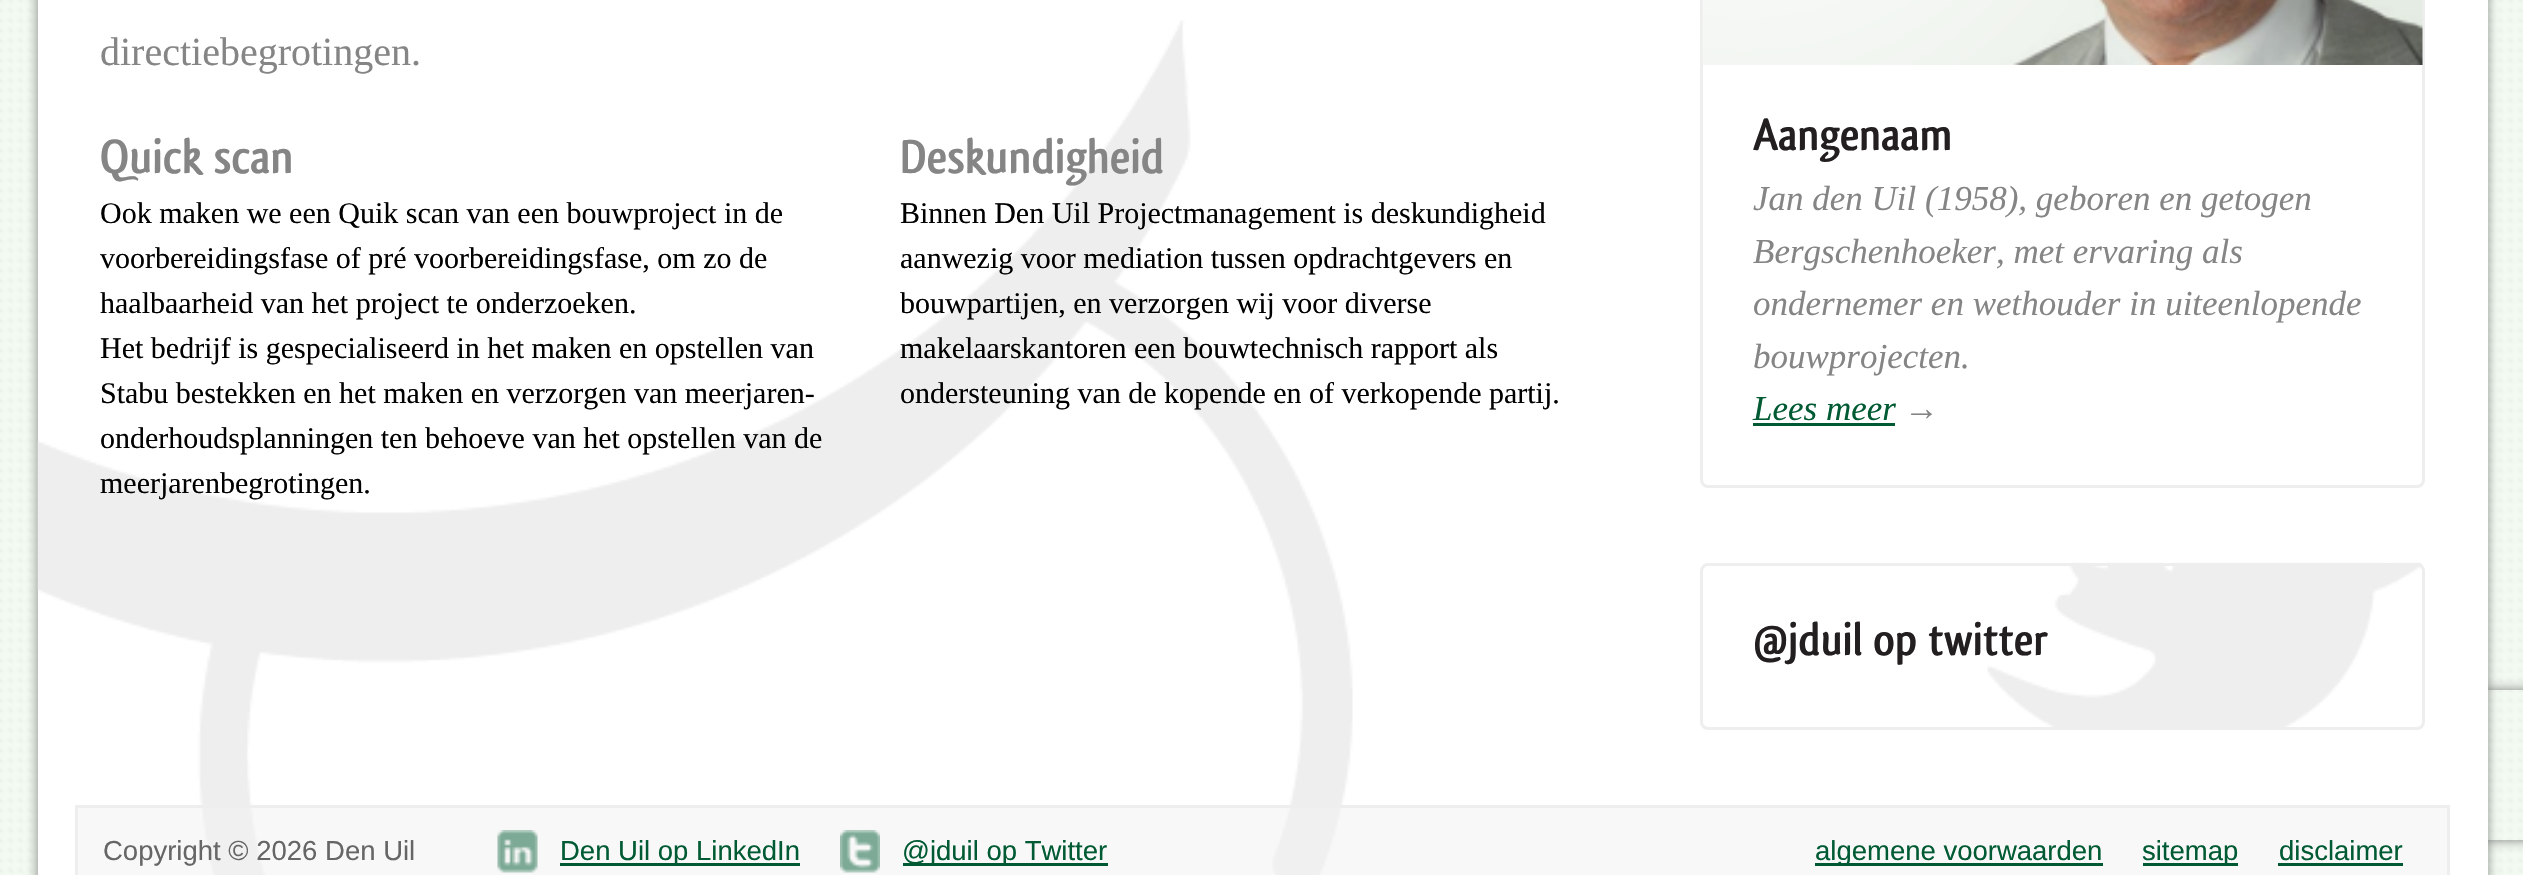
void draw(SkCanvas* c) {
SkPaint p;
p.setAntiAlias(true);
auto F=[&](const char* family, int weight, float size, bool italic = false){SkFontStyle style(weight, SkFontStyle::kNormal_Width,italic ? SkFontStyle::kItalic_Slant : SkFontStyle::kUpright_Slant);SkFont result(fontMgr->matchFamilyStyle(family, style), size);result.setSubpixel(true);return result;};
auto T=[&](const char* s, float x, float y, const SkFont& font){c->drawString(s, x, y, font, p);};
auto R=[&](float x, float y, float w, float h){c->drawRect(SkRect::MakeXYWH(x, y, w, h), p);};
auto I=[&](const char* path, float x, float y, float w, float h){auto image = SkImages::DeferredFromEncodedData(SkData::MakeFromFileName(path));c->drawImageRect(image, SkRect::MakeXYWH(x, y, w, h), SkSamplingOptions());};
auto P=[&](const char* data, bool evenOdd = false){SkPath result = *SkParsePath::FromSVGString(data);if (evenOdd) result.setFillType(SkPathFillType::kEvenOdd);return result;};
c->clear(0xffffffff);
I("1.png",0,0,2523,875);
p.setColor(0x4d000000);
p.setMaskFilter(SkMaskFilter::MakeBlur(kNormal_SkBlurStyle, 4));
c->drawRoundRect(SkRect::MakeXYWH(35,-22,2455,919),10,10,p);
p.setMaskFilter(nullptr);
c->save();
c->clipPath(P("M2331 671h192v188h-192zm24 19h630c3 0 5 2 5 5v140c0 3-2 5-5 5h-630c-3 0-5-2-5-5v-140c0-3 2-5 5-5z",true),true);
p.setColor(0xff808080);
p.setMaskFilter(SkMaskFilter::MakeBlur(kNormal_SkBlurStyle, 6));
c->drawRoundRect(SkRect::MakeXYWH(2350,690,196,150),5,5,p);
p.setMaskFilter(nullptr);
c->restore();
p.setColor(0xffffffff);
R(38,0,2450,875);
I("2.png",37,20,1316,855);
auto f1 = F("Liberation Serif",400,40);
p.setColor(0xff858585);
T("directiebegrotingen.",100,65,f1);
auto f2 = F("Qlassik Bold",700,50);
T("Quick scan",100,173,f2);
auto f3 = F("Liberation Serif",400,30);
p.setColor(0xff000000);
T("Ook maken we een Quik scan van een bouwproject in de",100,223,f3);
T("voorbereidingsfase of pré voorbereidingsfase, om zo de",100,268,f3);
T("haalbaarheid van het project te onderzoeken.",100,313,f3);
T("Het bedrijf is gespecialiseerd in het maken en opstellen van",100,358,f3);
T("Stabu bestekken en het maken en verzorgen van meerjaren-",100,403,f3);
T("onderhoudsplanningen ten behoeve van het opstellen van de",100,448,f3);
T("meerjarenbegrotingen.",100,493,f3);
p.setColor(0xff858585);
T("Deskundigheid",900,173,f2);
p.setColor(0xff000000);
T("Binnen Den Uil Projectmanagement is deskundigheid",900,223,f3);
T("aanwezig voor mediation tussen opdrachtgevers en",900,268,f3);
T("bouwpartijen, en verzorgen wij voor diverse",900,313,f3);
T("makelaarskantoren een bouwtechnisch rapport als",900,358,f3);
T("ondersteuning van de kopende en of verkopende partij.",900,403,f3);
p.setStroke(true);
p.setStrokeWidth(3);
p.setColor(0xffeeeeee);
c->drawRoundRect(SkRect::MakeXYWH(1701.5,-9.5,722,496),6.5,6.5,p);
I("3.png",1702,0,721,65);
auto f4 = F("Qlassik Bold",700,47.5);
p.setStroke(false);
p.setColor(0xff231f20);
T("Aangenaam",1753,150,f4);
auto f5 = F("Liberation Serif",400,35,true);
p.setColor(0xff858585);
T("Jan den Uil (1958), geboren en getogen",1753,210,f5);
T("Bergschenhoeker, met ervaring als",1753,263,f5);
T("ondernemer en wethouder in uiteenlopende",1753,315,f5);
T("bouwprojecten.",1753,368,f5);
p.setColor(0xff005a33);
T("Lees meer",1753,420,f5);
R(1753,423,142,3);
p.setColor(0xff858585);
T("→",1904,420,f5);
I("4.png",1987,562,436,165);
p.setStroke(true);
p.setColor(0xffeeeeee);
c->drawRoundRect(SkRect::MakeXYWH(1701.5,564.5,722,164),6.5,6.5,p);
p.setStroke(false);
p.setColor(0xff231f20);
T("@jduil op twitter",1753,655,f4);
p.setColor(0x80f2f2f2);
c->drawRect(SkRect::MakeXYWH(76.5,806.5,2372,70),p);
p.setStroke(true);
p.setColor(0xffeeeeee);
c->drawRect(SkRect::MakeXYWH(76.5,806.5,2372,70),p);
auto f6 = F("Liberation Sans",400,27.5);
p.setStroke(false);
p.setColor(0xff666666);
T("Copyright © 2026 Den Uil",103,860,f6);
I("5.png",497,830,41,43);
p.setColor(0xff005933);
R(560,863,240,3);
p.setColor(0xff005a33);
T("Den Uil op LinkedIn",560,860,f6);
I("6.png",840,830,40,43);
p.setColor(0xff005933);
R(903,863,205,3);
p.setColor(0xff005a33);
T("@jduil op Twitter",902,860,f6);
p.setColor(0xff005933);
R(1815,863,288,3);
p.setColor(0xff005a33);
T("algemene voorwaarden",1815,860,f6);
p.setColor(0xff005933);
R(2143,863,95,3);
p.setColor(0xff005a33);
T("sitemap",2142,860,f6);
T("disclaimer",2279,860,f6);
p.setColor(0xff005933);
R(2278,863,125,3);
}
